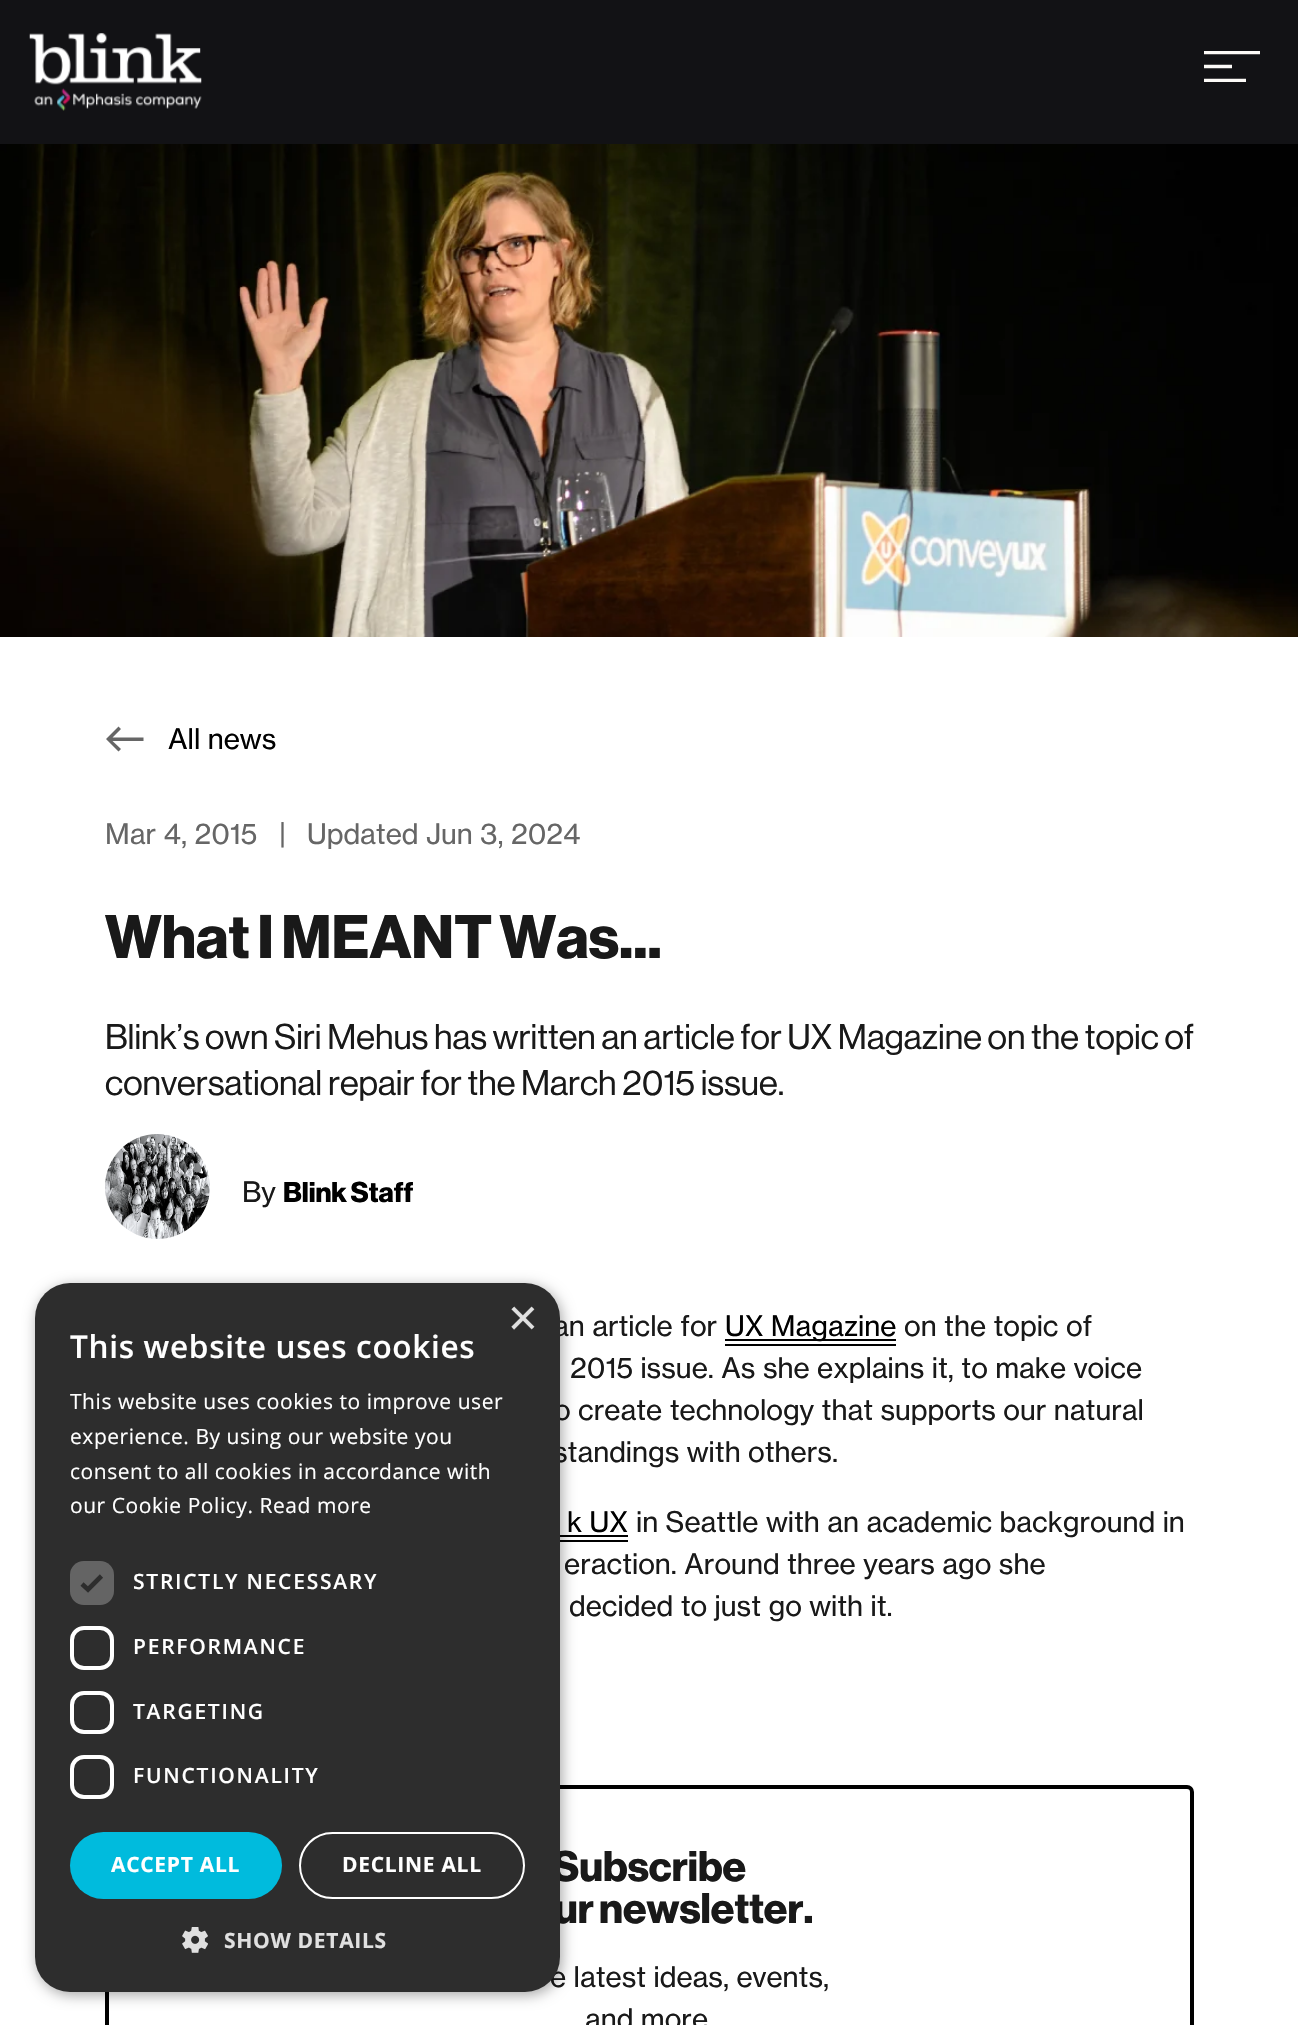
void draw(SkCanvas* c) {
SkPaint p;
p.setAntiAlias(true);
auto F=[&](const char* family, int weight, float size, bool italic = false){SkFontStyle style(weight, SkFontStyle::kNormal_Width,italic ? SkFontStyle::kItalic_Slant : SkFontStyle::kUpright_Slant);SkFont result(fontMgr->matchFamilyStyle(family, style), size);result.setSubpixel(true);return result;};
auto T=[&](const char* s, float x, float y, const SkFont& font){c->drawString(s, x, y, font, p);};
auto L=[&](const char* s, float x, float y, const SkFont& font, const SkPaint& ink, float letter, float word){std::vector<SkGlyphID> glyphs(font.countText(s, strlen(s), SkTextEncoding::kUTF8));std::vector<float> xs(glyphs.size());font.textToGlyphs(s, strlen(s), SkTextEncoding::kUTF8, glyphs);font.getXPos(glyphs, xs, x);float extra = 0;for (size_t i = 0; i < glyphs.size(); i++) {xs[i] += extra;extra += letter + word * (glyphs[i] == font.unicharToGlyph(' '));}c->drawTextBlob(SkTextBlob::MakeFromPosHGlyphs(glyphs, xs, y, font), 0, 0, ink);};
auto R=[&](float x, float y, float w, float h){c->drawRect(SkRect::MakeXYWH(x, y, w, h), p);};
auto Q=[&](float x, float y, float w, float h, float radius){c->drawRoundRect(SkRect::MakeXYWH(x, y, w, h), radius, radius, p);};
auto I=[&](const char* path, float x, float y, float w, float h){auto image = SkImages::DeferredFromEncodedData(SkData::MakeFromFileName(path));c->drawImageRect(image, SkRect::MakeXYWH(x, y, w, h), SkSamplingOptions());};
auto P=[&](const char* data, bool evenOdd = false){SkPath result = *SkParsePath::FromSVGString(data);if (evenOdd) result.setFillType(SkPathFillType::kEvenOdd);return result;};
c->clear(0xffffffff);
p.setColor(0xff121215);
R(0,0,1298,144);
I("1.png",29,33,173,78);
c->save();
c->clipRect(SkRect::MakeXYWH(1204,51,56,31));
p.setStroke(true);
p.setStrokeWidth(3.5);
p.setColor(0xfffcfaf7);
c->drawPath(P("M1260 52.5h-56"),p);
c->restore();
c->drawPath(P("M1232 66.5h-28"),p);
c->save();
c->clipRect(SkRect::MakeXYWH(1204,51,56,31));
c->drawPath(P("M1246 80.5h-42"),p);
c->restore();
I("2.png",0,144,1298,493);
p.setStroke(false);
p.setColor(0xff666666);
c->drawPath(P("M106 739l12.5-12.5l2.5 2.5l-8.5 8.5h31v3.5h-31l8.5 8l-2.5 2.5z"),p);
auto f1 = F("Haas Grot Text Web",400,28);
p.setColor(0xff000000);
T("All news",168,749,f1);
p.setColor(0xff666666);
T("Mar 4, 2015",105,844,f1);
T("|",279,844,f1);
T("Updated Jun 3, 2024",307,844,f1);
auto f2 = F("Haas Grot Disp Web",700,60.25);
p.setColor(0xff191919);
T("What I MEANT Was...",105,958,f2);
auto f3 = F("Haas Grot Disp Web",500,35);
T("Blink’s own Siri Mehus has written an article for UX Magazine on the topic of",105,1049,f3);
T("conversational repair for the March 2015 issue.",105,1095,f3);
I("3.png",105,1134,105,105);
T("By",242,1202,f1);
auto f4 = F("Haas Grot Disp Web",700,28);
p.setColor(0xff000000);
T("Blink Staff",283,1202,f4);
p.setColor(0xff191919);
T("an article for",553,1336,f1);
p.setColor(0xff000000);
R(725,1339,171,2);
T("UX Magazine",725,1336,f1);
R(725,1344,171,2);
p.setColor(0xff191919);
T("on the topic of",904,1336,f1);
T("2015 issue. As she explains it, to make voice",570,1378,f1);
T("o create technology that supports our natural",554,1420,f1);
T("standings with others.",553,1462,f1);
p.setColor(0xff000000);
T("k UX",567,1532,f1);
R(560,1540,68,2);
R(560,1535,68,2);
p.setColor(0xff191919);
T("in Seattle with an academic background in",636,1532,f1);
T("eraction. Around three years ago she",564,1574,f1);
T("decided to just go with it.",569,1616,f1);
p.setStroke(true);
p.setStrokeWidth(4);
p.setColor(0xff000000);
c->drawRoundRect(SkRect::MakeXYWH(107,1787,1085,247),5,5,p);
auto f5 = F("Haas Grot Disp Web",700,42);
p.setStroke(false);
p.setColor(0xff191919);
T("Subscribe",552,1881,f5);
T("ur newsletter.",554,1923,f5);
T("e latest ideas, events,",550,1987,f1);
T("and more",585,2029,f1);
p.setColor(0x59000000);
p.setMaskFilter(SkMaskFilter::MakeBlur(kNormal_SkBlurStyle, 7));
c->drawRoundRect(SkRect::MakeXYWH(37,1286,525,709),35,35,p);
p.setMaskFilter(nullptr);
p.setColor(0xff2d2d2d);
Q(35,1283,525,709,35);
auto f6 = F("Liberation Sans",400,51);
p.setColor(0xffe0e0e0);
T("×",508,1335,f6);
auto f7 = F("Open Sans",600,31.5);
p.setColor(0xffffffff);
L("This website uses cookies",70,1358,f7,p,.7,0);
auto f8 = F("Open Sans",400,21);
L("This website uses cookies to improve user",70,1409,f8,p,.55,0);
L("experience. By using our website you",70,1444,f8,p,.55,0);
L("consent to all cookies in accordance with",70,1479,f8,p,.55,0);
L("our Cookie Policy. Read more",70,1513,f8,p,.55,0);
p.setColor(0xff646464);
Q(70,1561,44,44,14);
p.setStroke(true);
p.setStrokeWidth(4.6);
p.setColor(0xff2d2d2d);
c->drawPath(P("M82 1584l6 5.5l13.5-13.5"),p);
auto f9 = F("Open Sans",600,21);
p.setStroke(false);
p.setColor(0xffffffff);
L("STRICTLY NECESSARY",133,1589,f9,p,1.75,0);
p.setStroke(true);
p.setStrokeWidth(4);
c->drawRoundRect(SkRect::MakeXYWH(72,1628,40,40),12,12,p);
p.setStroke(false);
L("PERFORMANCE",133,1654,f9,p,1.75,0);
p.setStroke(true);
c->drawRoundRect(SkRect::MakeXYWH(72,1693,40,39),12,12,p);
p.setStroke(false);
L("TARGETING",133,1719,f9,p,1.75,0);
p.setStroke(true);
c->drawRoundRect(SkRect::MakeXYWH(72,1757,40,40),12,12,p);
p.setStroke(false);
L("FUNCTIONALITY",133,1783,f9,p,1.75,0);
p.setColor(0xff00bbdd);
Q(70,1832,212,67,33.5);
auto f10 = F("Open Sans",700,21);
p.setColor(0xffffffff);
L("ACCEPT ALL",111,1872,f10,p,.7,0);
p.setStroke(true);
p.setStrokeWidth(2);
c->drawRoundRect(SkRect::MakeXYWH(300,1833,224,65),32.5,32.5,p);
p.setStroke(false);
L("DECLINE ALL",342,1872,f10,p,.7,0);
I("4.png",182,1927,26,26);
p.setColor(0xffe0e0e0);
L("SHOW DETAILS",224,1948,f10,p,.7,0);
}
